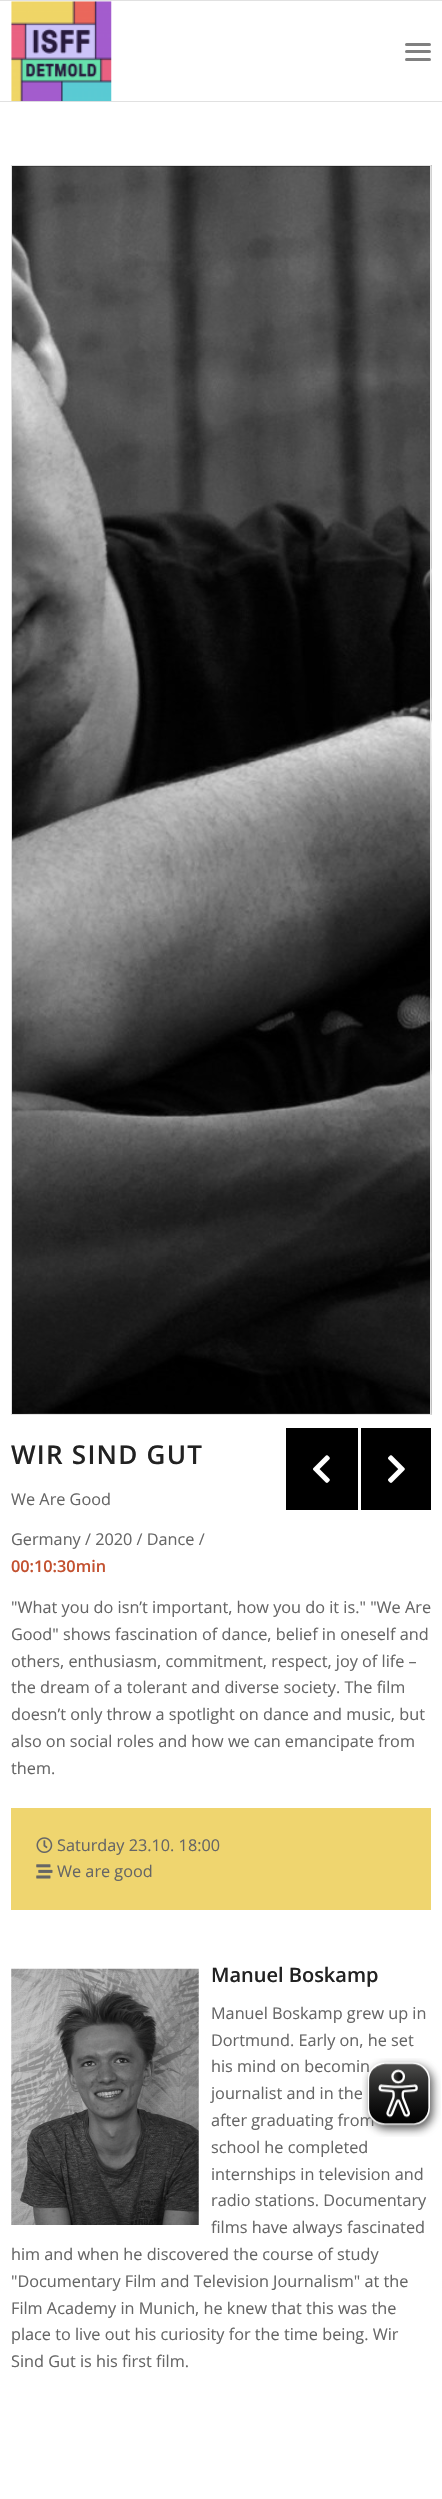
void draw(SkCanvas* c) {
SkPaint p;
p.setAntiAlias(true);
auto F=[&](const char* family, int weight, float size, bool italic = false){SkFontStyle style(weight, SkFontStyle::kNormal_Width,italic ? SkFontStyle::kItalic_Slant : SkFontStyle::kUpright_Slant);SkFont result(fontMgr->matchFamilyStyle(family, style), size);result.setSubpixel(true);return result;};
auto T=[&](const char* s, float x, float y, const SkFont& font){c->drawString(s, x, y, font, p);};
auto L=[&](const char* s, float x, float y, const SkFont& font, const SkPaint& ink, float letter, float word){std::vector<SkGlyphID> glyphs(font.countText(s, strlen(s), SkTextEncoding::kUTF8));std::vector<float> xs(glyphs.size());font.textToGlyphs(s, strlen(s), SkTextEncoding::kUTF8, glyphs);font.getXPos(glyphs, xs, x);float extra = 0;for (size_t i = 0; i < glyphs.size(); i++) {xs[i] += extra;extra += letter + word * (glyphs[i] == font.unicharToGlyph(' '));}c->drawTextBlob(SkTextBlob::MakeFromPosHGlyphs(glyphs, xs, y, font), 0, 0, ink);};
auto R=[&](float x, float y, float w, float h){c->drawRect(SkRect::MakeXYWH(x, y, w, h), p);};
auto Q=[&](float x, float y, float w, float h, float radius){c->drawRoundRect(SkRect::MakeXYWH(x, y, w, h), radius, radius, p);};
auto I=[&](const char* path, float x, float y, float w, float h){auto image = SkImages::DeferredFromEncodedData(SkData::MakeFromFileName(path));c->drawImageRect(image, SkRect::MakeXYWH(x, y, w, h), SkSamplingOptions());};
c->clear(0xffffffff);
p.setColor(0xffe1e1e1);
R(0,0,442,1);
R(0,101,442,1);
I("1.png",11,1,101,101);
p.setColor(0xff808080);
Q(405,50,26,3,1.5);
Q(405,43,26,3,1.5);
Q(405,58,26,3,1.5);
I("2.png",12,165,420,1250);
p.setStroke(true);
p.setStrokeWidth(1);
p.setColor(0xffe1e1e1);
c->drawRect(SkRect::MakeXYWH(11.5,165.5,419,1249),p);
p.setStroke(false);
p.setColor(0xff000000);
R(286,1428,72,82);
I("3.png",313,1455,17,28);
R(361,1428,70,82);
I("4.png",388,1455,17,28);
auto f1 = F("Open Sans",600,26);
p.setColor(0xff222222);
L("WIR SIND GUT",11,1464,f1,p,1.25,0);
auto f2 = F("Open Sans",400,16.25);
p.setColor(0xff666666);
T("We Are Good",11,1505,f2);
T("Germany / 2020 / Dance /",11,1545,f2);
auto f3 = F("Open Sans",600,16.25);
p.setColor(0xffc3512f);
T("00:10:30min",11,1572,f3);
p.setColor(0xff666666);
T("\"What you do isn’t important, how you do it is.\" \"We Are",11,1613,f2);
T("Good\" shows fascination of dance, belief in oneself and",11,1640,f2);
T("others, enthusiasm, commitment, respect, joy of life –",11,1667,f2);
T("the dream of a tolerant and diverse society. The film",11,1693,f2);
T("doesn’t only throw a spotlight on dance and music, but",11,1720,f2);
T("also on social roles and how we can emancipate from",11,1747,f2);
T("them.",11,1774,f2);
p.setColor(0xffefd56f);
R(11,1808,420,102);
I("5.png",36,1837,17,16);
p.setColor(0xff666666);
T("Saturday 23.10. 18:00",57,1851,f2);
I("6.png",36,1864,17,15);
T("We are good",57,1877,f2);
I("7.png",11,1968,188,257);
auto f4 = F("Open Sans",600,20);
p.setColor(0xff222222);
T("Manuel Boskamp",211,1982,f4);
p.setColor(0xff666666);
T("Manuel Boskamp grew up in",211,2019,f2);
T("Dortmund. Early on, he set",211,2046,f2);
T("his mind on becomin",211,2072,f2);
T("journalist and in the",211,2099,f2);
T("after graduating from",211,2126,f2);
T("school he completed",211,2153,f2);
T("internships in television and",211,2180,f2);
T("radio stations. Documentary",211,2206,f2);
T("films have always fascinated",211,2233,f2);
T("him and when he discovered the course of study",11,2260,f2);
T("\"Documentary Film and Television Journalism\" at the",11,2287,f2);
T("Film Academy in Munich, he knew that this was the",11,2314,f2);
T("place to live out his curiosity for the time being. Wir",11,2340,f2);
T("Sind Gut is his first film.",11,2367,f2);
I("8.png",362,2058,79,79);
}
